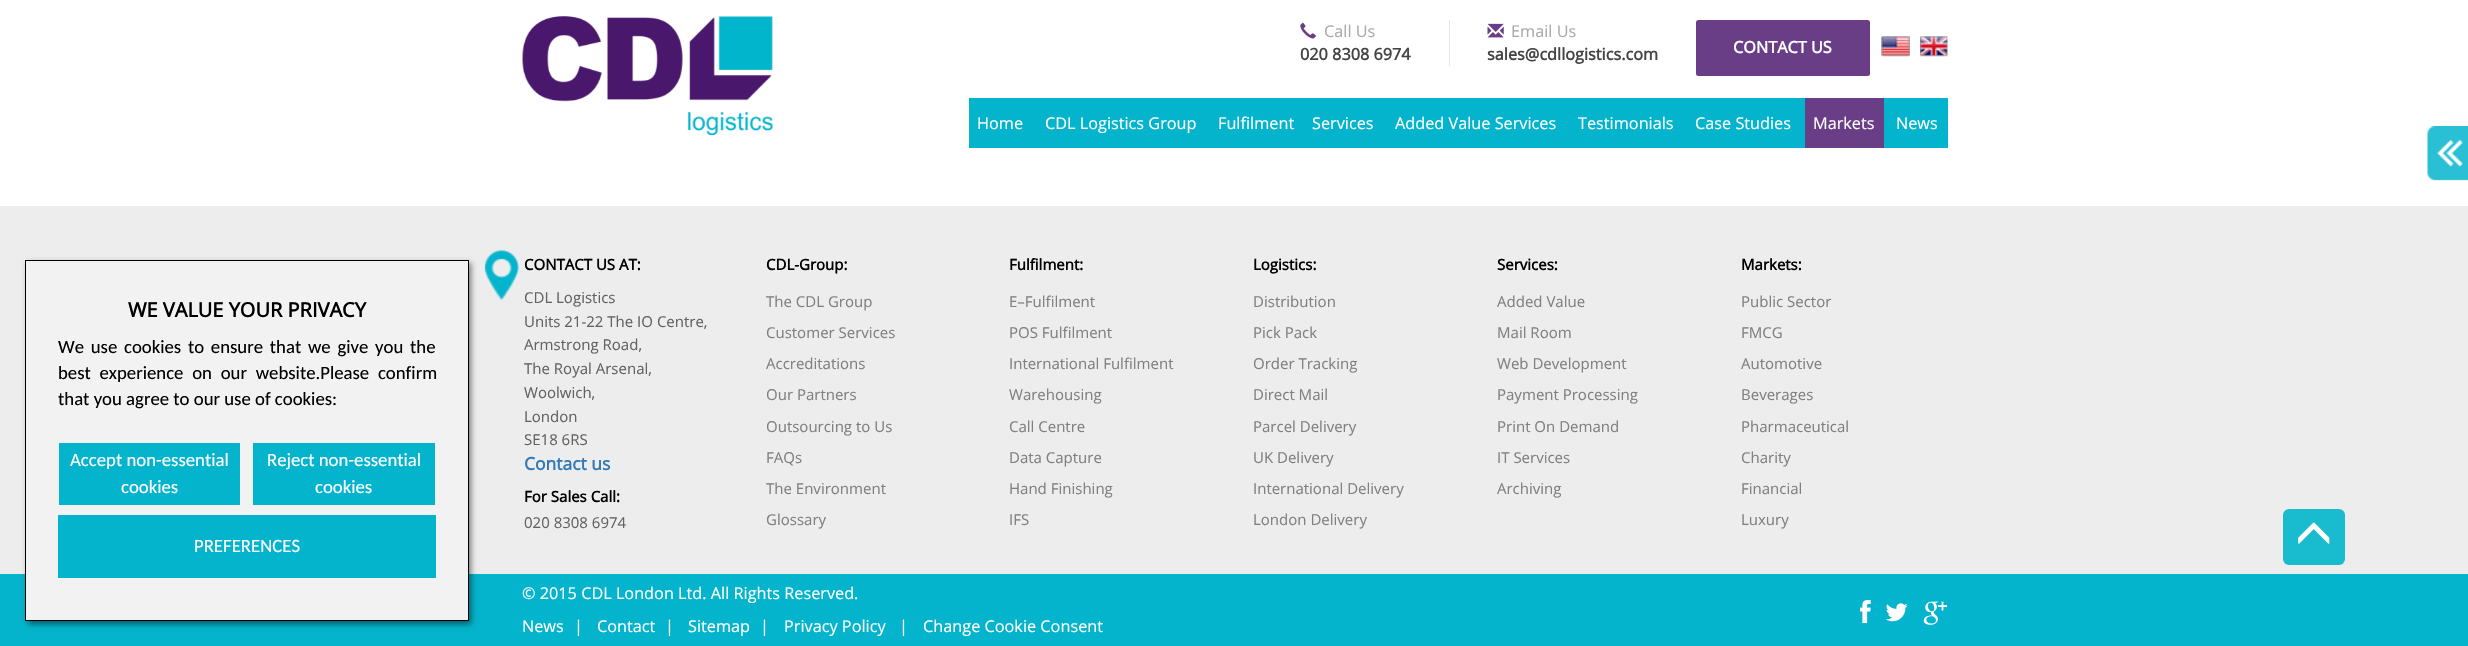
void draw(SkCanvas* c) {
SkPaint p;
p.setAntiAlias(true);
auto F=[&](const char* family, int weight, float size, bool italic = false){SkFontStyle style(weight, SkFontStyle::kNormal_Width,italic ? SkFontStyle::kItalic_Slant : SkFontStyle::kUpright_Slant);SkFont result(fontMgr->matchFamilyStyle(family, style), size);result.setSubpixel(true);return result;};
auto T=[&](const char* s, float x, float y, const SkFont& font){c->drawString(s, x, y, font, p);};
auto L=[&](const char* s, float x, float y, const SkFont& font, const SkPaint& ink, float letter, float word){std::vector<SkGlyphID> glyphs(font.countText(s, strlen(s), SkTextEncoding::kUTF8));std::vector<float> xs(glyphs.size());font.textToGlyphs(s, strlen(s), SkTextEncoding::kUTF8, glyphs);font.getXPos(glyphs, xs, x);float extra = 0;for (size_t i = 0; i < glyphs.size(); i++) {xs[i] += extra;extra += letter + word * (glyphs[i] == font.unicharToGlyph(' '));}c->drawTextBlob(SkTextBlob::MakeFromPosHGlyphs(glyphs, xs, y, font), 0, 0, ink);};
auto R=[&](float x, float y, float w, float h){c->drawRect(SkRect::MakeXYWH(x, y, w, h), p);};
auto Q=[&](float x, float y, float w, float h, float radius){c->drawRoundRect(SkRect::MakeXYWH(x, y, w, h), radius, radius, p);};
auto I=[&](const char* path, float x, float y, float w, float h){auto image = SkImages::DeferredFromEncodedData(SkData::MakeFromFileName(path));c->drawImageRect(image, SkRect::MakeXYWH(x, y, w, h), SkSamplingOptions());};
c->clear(0xffffffff);
I("1.png",1300,22,16,17);
auto f1 = F("Open Sans",400,16.25);
p.setColor(0xffaaaaaa);
T("Call Us",1324,37,f1);
auto f2 = F("Open Sans",700,16.25);
p.setColor(0xff444444);
T("020 8308 6974",1300,60,f2);
p.setColor(0xffe6e6e6);
R(1449,20,1,46);
I("2.png",1487,23,17,15);
p.setColor(0xffaaaaaa);
T("Email Us",1511,37,f1);
p.setColor(0xff444444);
T("sales@cdllogistics.com",1487,60,f2);
p.setColor(0xff693e87);
Q(1696,20,174,56,2.5);
p.setColor(0xffffffff);
T("CONTACT US",1733,53,f2);
I("3.png",1881,36,29,21);
I("4.png",1920,36,28,21);
I("5.png",522,16,251,119);
p.setColor(0xff04b4cc);
R(969,98,979,50);
p.setColor(0xffffffff);
T("Home",977,129,f1);
T("CDL Logistics Group",1045,129,f1);
T("Fulfilment",1218,129,f1);
T("Services",1312,129,f1);
T("Added Value Services",1395,129,f1);
T("Testimonials",1578,129,f1);
T("Case Studies",1695,129,f1);
p.setColor(0xff693e87);
R(1805,98,79,50);
p.setColor(0xffffffff);
T("Markets",1813,129,f1);
T("News",1896,129,f1);
p.setColor(0xffededed);
R(0,206,2468,368);
I("6.png",484,250,35,51);
auto f3 = F("Open Sans",700,15);
p.setColor(0xff000000);
T("CONTACT US AT:",524,270,f3);
auto f4 = F("Open Sans",400,15);
p.setColor(0xff626262);
T("CDL Logistics",524,303,f4);
T("Units 21-22 The IO Centre,",524,327,f4);
T("Armstrong Road,",524,350,f4);
T("The Royal Arsenal,",524,374,f4);
T("Woolwich,",524,398,f4);
T("London",524,422,f4);
T("SE18 6RS",524,445,f4);
auto f5 = F("Open Sans",700,17.5);
p.setColor(0xff337ab7);
T("Contact us",524,470,f5);
p.setColor(0xff000000);
T("For Sales Call:",524,502,f3);
p.setColor(0xff626262);
T("020 8308 6974",524,528,f4);
p.setColor(0xff000000);
T("CDL-Group:",766,270,f3);
p.setColor(0xff808080);
T("The CDL Group",766,307,f4);
T("Customer Services",766,338,f4);
T("Accreditations",766,369,f4);
T("Our Partners",766,400,f4);
T("Outsourcing to Us",766,432,f4);
T("FAQs",766,463,f4);
T("The Environment",766,494,f4);
T("Glossary",766,525,f4);
p.setColor(0xff000000);
T("Fulfilment:",1009,270,f3);
p.setColor(0xff808080);
T("E–Fulfilment",1009,307,f4);
T("POS Fulfilment",1009,338,f4);
T("International Fulfilment",1009,369,f4);
T("Warehousing",1009,400,f4);
T("Call Centre",1009,432,f4);
T("Data Capture",1009,463,f4);
T("Hand Finishing",1009,494,f4);
T("IFS",1009,525,f4);
p.setColor(0xff000000);
T("Logistics:",1253,270,f3);
p.setColor(0xff808080);
T("Distribution",1253,307,f4);
T("Pick Pack",1253,338,f4);
T("Order Tracking",1253,369,f4);
T("Direct Mail",1253,400,f4);
T("Parcel Delivery",1253,432,f4);
T("UK Delivery",1253,463,f4);
T("International Delivery",1253,494,f4);
T("London Delivery",1253,525,f4);
p.setColor(0xff000000);
T("Services:",1497,270,f3);
p.setColor(0xff808080);
T("Added Value",1497,307,f4);
T("Mail Room",1497,338,f4);
T("Web Development",1497,369,f4);
T("Payment Processing",1497,400,f4);
T("Print On Demand",1497,432,f4);
T("IT Services",1497,463,f4);
T("Archiving",1497,494,f4);
p.setColor(0xff000000);
T("Markets:",1741,270,f3);
p.setColor(0xff808080);
T("Public Sector",1741,307,f4);
T("FMCG",1741,338,f4);
T("Automotive",1741,369,f4);
T("Beverages",1741,400,f4);
T("Pharmaceutical",1741,432,f4);
T("Charity",1741,463,f4);
T("Financial",1741,494,f4);
T("Luxury",1741,525,f4);
p.setColor(0xff04b4cc);
R(0,574,2468,72);
p.setColor(0xffffffff);
T("© 2015 CDL London Ltd. All Rights Reserved.",522,599,f1);
T("News",522,632,f1);
T("|",574,632,f1);
T("Contact",597,632,f1);
T("|",665,632,f1);
T("Sitemap",688,632,f1);
T("|",760,632,f1);
T("Privacy Policy",784,632,f1);
T("|",899,632,f1);
T("Change Cookie Consent",923,632,f1);
I("7.png",1860,600,11,24);
I("8.png",1885,603,23,19);
I("9.png",1923,601,24,24);
I("10.png",2427,126,41,55);
p.setColor(0x80000000);
p.setMaskFilter(SkMaskFilter::MakeBlur(kNormal_SkBlurStyle, 3));
c->drawRect(SkRect::MakeXYWH(28,263,443,361),p);
p.setMaskFilter(nullptr);
p.setColor(0xfff2f2f2);
c->drawRect(SkRect::MakeXYWH(25.5,260.5,443,360),p);
p.setStroke(true);
p.setStrokeWidth(1);
p.setColor(0xff000000);
c->drawRect(SkRect::MakeXYWH(25.5,260.5,443,360),p);
auto f6 = F("Open Sans",700,20);
p.setStroke(false);
T("WE VALUE YOUR PRIVACY",128,317,f6);
auto f7 = F("Carlito",400,18.75);
L("We use cookies to ensure that we give you the",58,353,f7,p,0,2.5);
L("best experience on our website.Please confirm",58,379,f7,p,0,4.5);
T("that you agree to our use of cookies:",58,405,f7);
p.setColor(0xff04b4cc);
R(59,443,181,62);
p.setColor(0xffffffff);
T("Accept non-essential",70,466,f7);
T("cookies",121,493,f7);
p.setColor(0xff04b4cc);
R(253,443,182,62);
p.setColor(0xffffffff);
T("Reject non-essential",267,466,f7);
T("cookies",315,493,f7);
p.setColor(0xff04b4cc);
R(58,515,378,63);
p.setColor(0xffffffff);
T("PREFERENCES",194,552,f7);
p.setColor(0xff19bbcf);
Q(2283,509,62,56,6);
I("11.png",2298,522,32,22);
}
